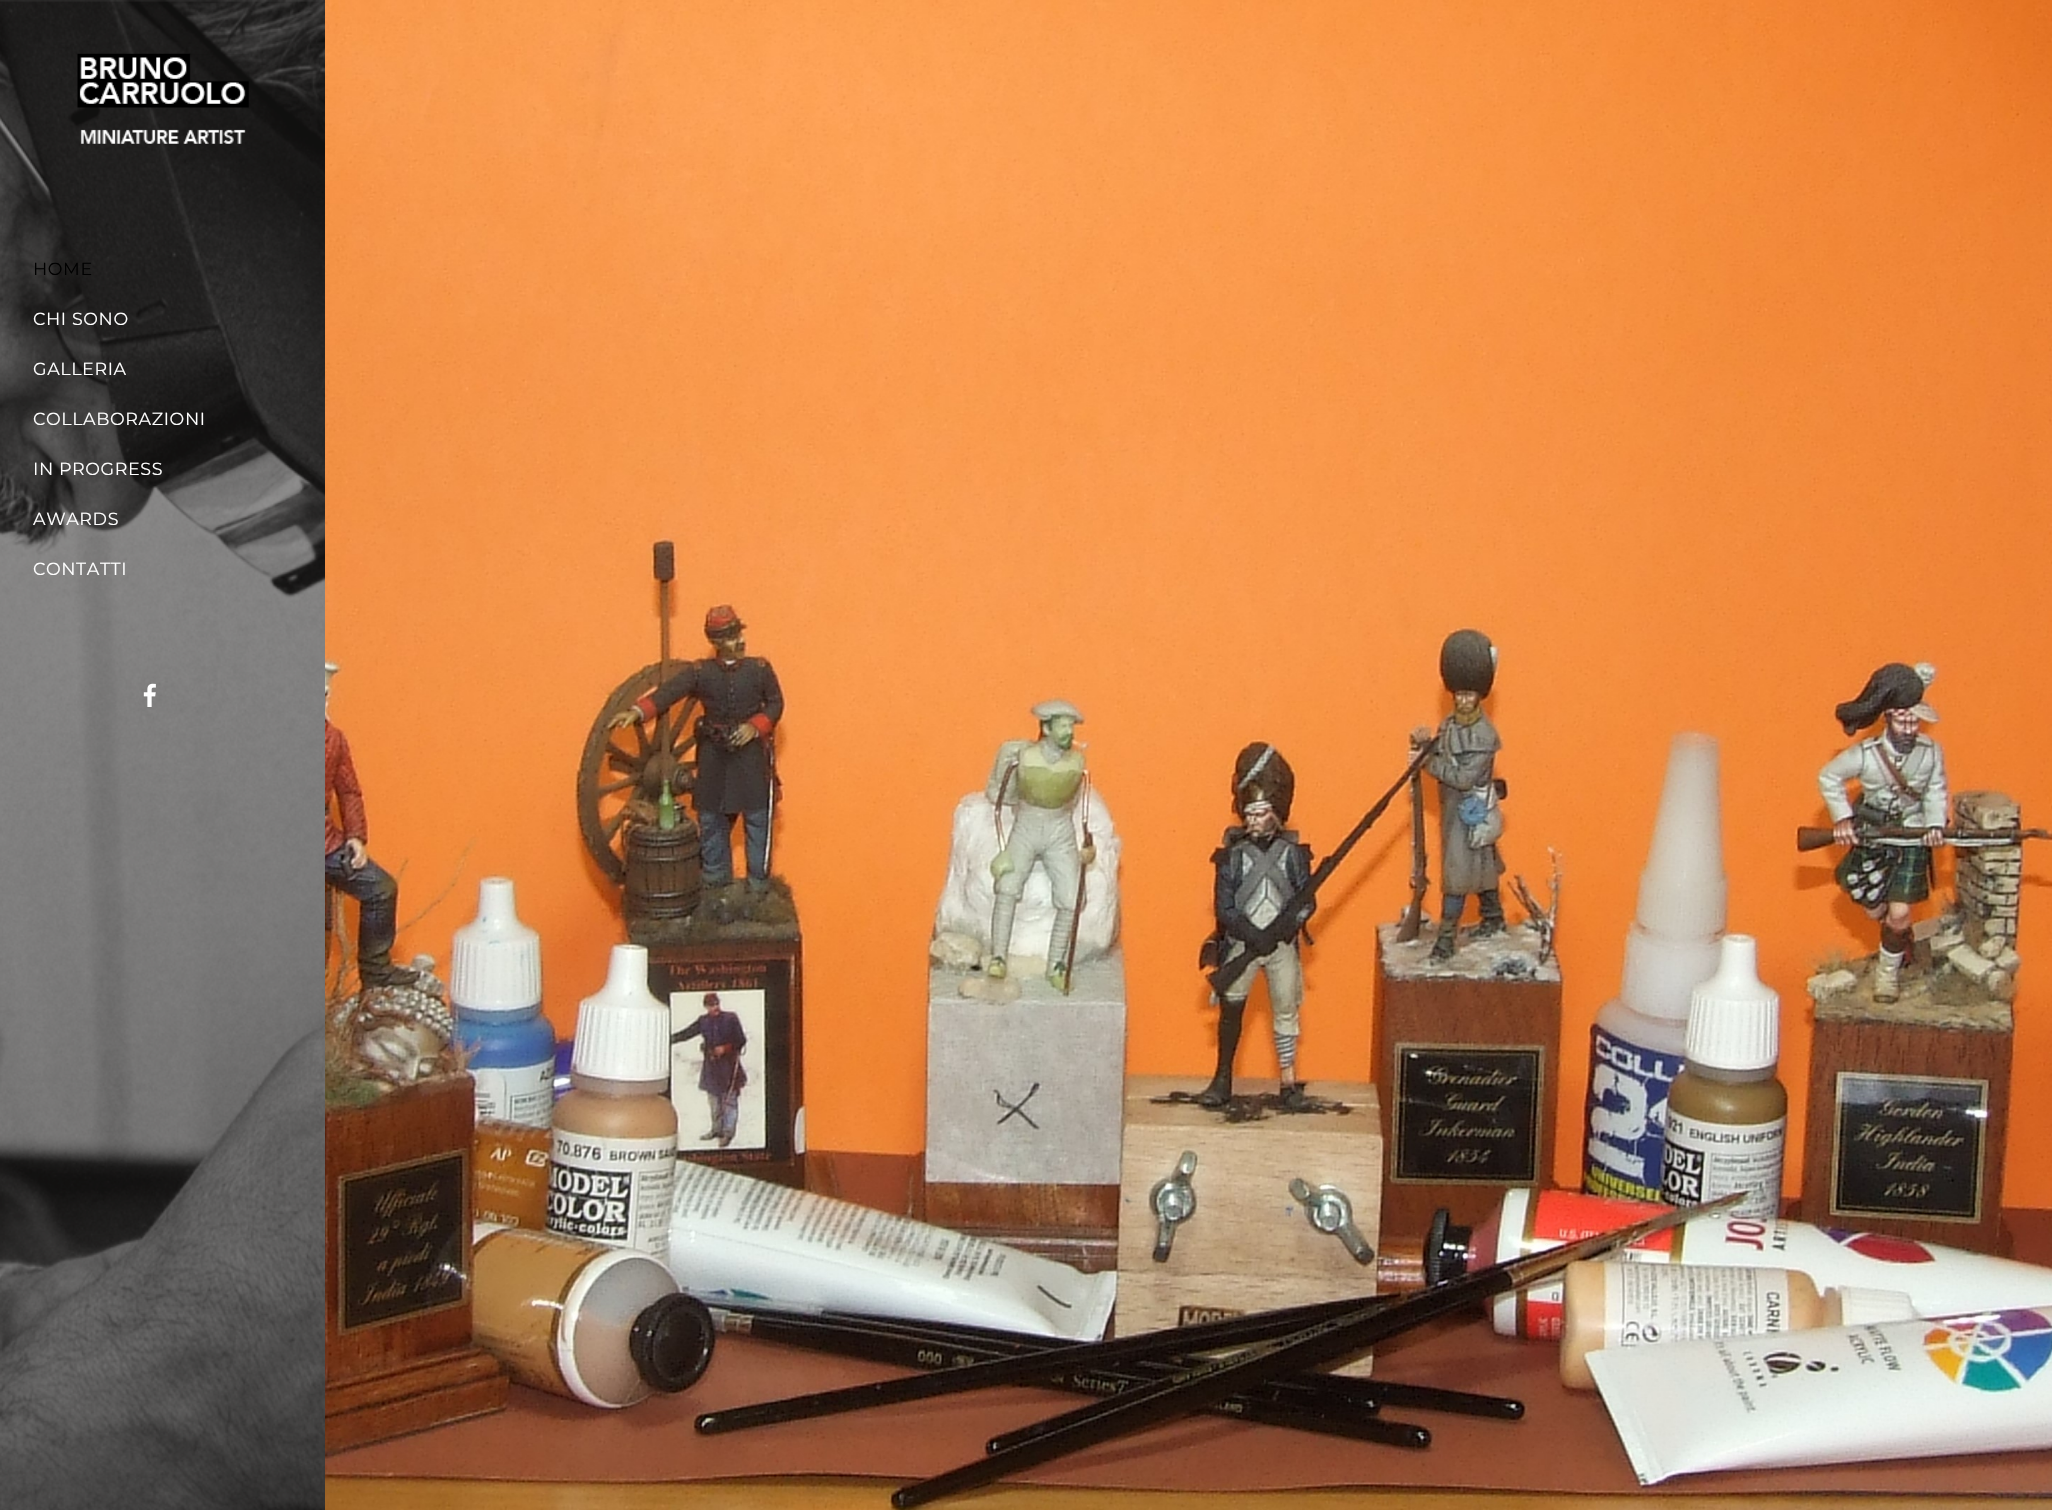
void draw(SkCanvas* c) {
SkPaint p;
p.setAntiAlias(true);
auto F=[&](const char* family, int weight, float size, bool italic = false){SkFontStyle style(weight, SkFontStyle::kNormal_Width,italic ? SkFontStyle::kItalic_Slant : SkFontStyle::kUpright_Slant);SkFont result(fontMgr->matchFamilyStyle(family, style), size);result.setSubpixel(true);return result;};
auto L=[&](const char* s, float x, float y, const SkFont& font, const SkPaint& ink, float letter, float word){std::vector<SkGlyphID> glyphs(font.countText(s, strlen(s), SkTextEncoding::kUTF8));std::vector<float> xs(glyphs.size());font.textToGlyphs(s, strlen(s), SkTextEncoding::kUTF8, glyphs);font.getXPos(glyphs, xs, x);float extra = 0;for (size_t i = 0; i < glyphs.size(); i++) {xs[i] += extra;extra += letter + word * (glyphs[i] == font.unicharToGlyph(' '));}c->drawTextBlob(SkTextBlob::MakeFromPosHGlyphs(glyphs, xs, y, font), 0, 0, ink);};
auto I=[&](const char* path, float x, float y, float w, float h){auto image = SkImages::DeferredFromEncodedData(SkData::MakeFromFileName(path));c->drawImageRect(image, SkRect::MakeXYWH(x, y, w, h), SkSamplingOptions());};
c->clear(0xffffffff);
I("1.png",0,0,325,1510);
I("2.png",77,53,172,91);
auto f1 = F("Montserrat",400,17.5);
p.setColor(0xff000000);
L("HOME",33,275,f1,p,.6,0);
p.setColor(0xffffffff);
L("CHI SONO",33,325,f1,p,.6,0);
L("GALLERIA",33,375,f1,p,.6,0);
L("COLLABORAZIONI",33,425,f1,p,.6,0);
L("IN PROGRESS",33,475,f1,p,.6,0);
L("AWARDS",33,525,f1,p,.6,0);
L("CONTATTI",33,575,f1,p,.6,0);
I("3.png",143,683,13,24);
I("4.png",325,0,1727,1510);
}
